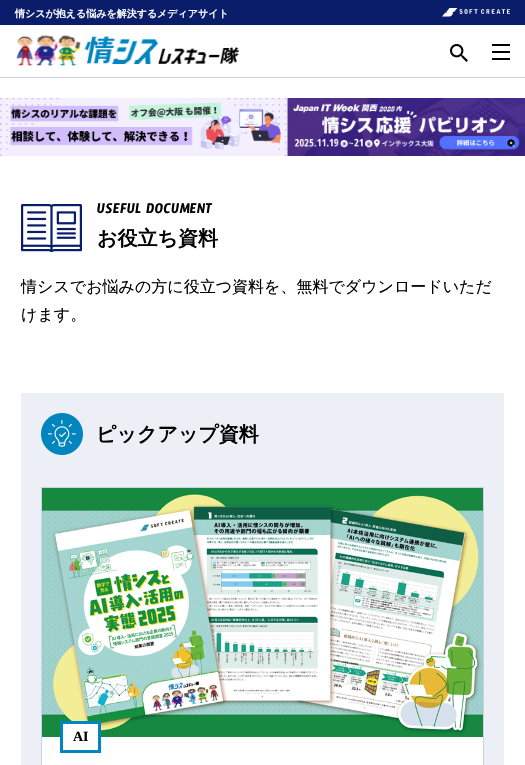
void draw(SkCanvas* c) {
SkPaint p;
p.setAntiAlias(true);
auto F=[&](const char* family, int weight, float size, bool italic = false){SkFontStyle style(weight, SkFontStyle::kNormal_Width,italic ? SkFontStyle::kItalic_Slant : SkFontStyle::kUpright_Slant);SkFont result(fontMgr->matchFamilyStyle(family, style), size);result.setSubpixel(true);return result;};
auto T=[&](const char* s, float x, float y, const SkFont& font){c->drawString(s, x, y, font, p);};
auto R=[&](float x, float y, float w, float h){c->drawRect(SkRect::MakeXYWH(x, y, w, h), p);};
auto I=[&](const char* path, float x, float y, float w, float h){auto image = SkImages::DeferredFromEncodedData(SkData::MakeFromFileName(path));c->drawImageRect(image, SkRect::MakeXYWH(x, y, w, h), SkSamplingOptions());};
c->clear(0xffffffff);
p.setColor(0xffcad0e6);
R(0,77,525,1);
p.setColor(0xff0a1d6a);
R(0,0,525,25);
auto f1 = F("WenQuanYi Zen Hei",700,10);
p.setColor(0xffffffff);
T("情シスが抱える悩みを解決するメディアサイト",15,17,f1);
I("1.png",442,8,68,9);
I("2.png",16,35,224,31);
I("3.png",450,44,18,18);
p.setColor(0xff000000);
R(492,44,18,2);
R(492,51,18,2);
R(492,58,18,2);
I("4.png",0,98,525,58);
I("5.png",21,204,61,48);
auto f2 = F("Timmana",400,16);
T("USEFUL DOCUMENT",97,213,f2);
auto f3 = F("WenQuanYi Zen Hei",700,20);
T("お役立ち資料",97,245,f3);
auto f4 = F("WenQuanYi Zen Hei",500,16);
T("情シスでお悩みの方に役立つ資料を、無料でダウンロードいただ",21,292,f4);
T("けます。",21,320,f4);
p.setColor(0xffedeff6);
R(21,393,483,372);
I("6.png",41,413,42,42);
p.setColor(0xff000000);
T("ピックアップ資料",96,441,f3);
p.setColor(0xffffffff);
R(42,737,441,28);
p.setStroke(true);
p.setStrokeWidth(1);
p.setColor(0xffcad0e6);
c->drawRect(SkRect::MakeXYWH(41.5,487.5,442,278),p);
I("7.png",42,488,441,249);
p.setStroke(false);
p.setColor(0xffffffff);
R(63,724,35,13);
p.setStroke(true);
p.setStrokeWidth(3);
p.setColor(0xff0085bf);
c->drawRect(SkRect::MakeXYWH(61.5,722.5,38,29),p);
auto f5 = F("Liberation Serif",700,14);
p.setStroke(false);
p.setColor(0xff000000);
T("AI",73,741,f5);
}
